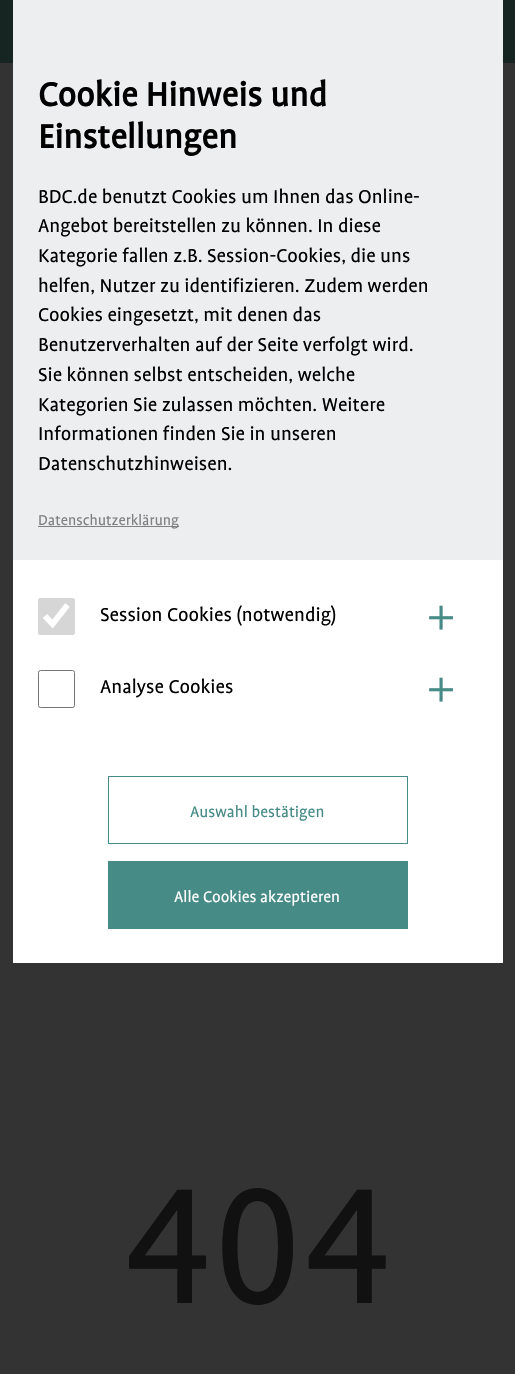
void draw(SkCanvas* c) {
SkPaint p;
p.setAntiAlias(true);
auto F=[&](const char* family, int weight, float size, bool italic = false){SkFontStyle style(weight, SkFontStyle::kNormal_Width,italic ? SkFontStyle::kItalic_Slant : SkFontStyle::kUpright_Slant);SkFont result(fontMgr->matchFamilyStyle(family, style), size);result.setSubpixel(true);return result;};
auto T=[&](const char* s, float x, float y, const SkFont& font){c->drawString(s, x, y, font, p);};
auto R=[&](float x, float y, float w, float h){c->drawRect(SkRect::MakeXYWH(x, y, w, h), p);};
auto Q=[&](float x, float y, float w, float h, float radius){c->drawRoundRect(SkRect::MakeXYWH(x, y, w, h), radius, radius, p);};
auto P=[&](const char* data, bool evenOdd = false){SkPath result = *SkParsePath::FromSVGString(data);if (evenOdd) result.setFillType(SkPathFillType::kEvenOdd);return result;};
c->clear(0xff333333);
p.setColor(0xffffffff);
R(13,560,490,403);
p.setColor(0xff172522);
R(0,0,515,63);
p.setColor(0xffedeeef);
R(13,0,490,560);
auto f1 = F("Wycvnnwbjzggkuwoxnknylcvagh",700,37.5);
p.setColor(0xff000000);
T("Cookie Hinweis und",38,106,f1);
T("Einstellungen",38,148,f1);
auto f2 = F("Wycvnnwbjzggkuwoxnknylcvagh",400,21.25);
T("BDC.de benutzt Cookies um Ihnen das Online-",38,203,f2);
T("Angebot bereitstellen zu können. In diese",38,232,f2);
T("Kategorie fallen z.B. Session-Cookies, die uns",38,262,f2);
T("helfen, Nutzer zu identifizieren. Zudem werden",38,292,f2);
T("Cookies eingesetzt, mit denen das",38,321,f2);
T("Benutzerverhalten auf der Seite verfolgt wird.",38,351,f2);
T("Sie können selbst entscheiden, welche",38,381,f2);
T("Kategorien Sie zulassen möchten. Weitere",38,411,f2);
T("Informationen finden Sie in unseren",38,440,f2);
T("Datenschutzhinweisen.",38,470,f2);
p.setColor(0xff808080);
R(38,526,141,1);
auto f3 = F("Wycvnnwbjzggkuwoxnknylcvagh",400,16.25);
T("Datenschutzerklärung",38,525,f3);
p.setColor(0xffd6d6d6);
Q(38,598,37,37,2.5);
p.setStroke(true);
p.setStrokeWidth(6);
p.setColor(0xffffffff);
c->drawPath(P("M45 616l7.5 8l15-19"),p);
p.setStroke(false);
p.setColor(0xff000000);
T("Session Cookies (notwendig)",100,621,f2);
auto f4 = F("WenQuanYi Zen Hei",500,46);
p.setColor(0xff468b86);
T("＋",418,631,f4);
p.setStroke(true);
p.setStrokeWidth(1);
p.setColor(0xff767676);
c->drawRoundRect(SkRect::MakeXYWH(38.5,670.5,36,37),2,2,p);
p.setStroke(false);
p.setColor(0xff000000);
T("Analyse Cookies",100,693,f2);
p.setColor(0xff468b86);
T("＋",418,703,f4);
p.setStroke(true);
c->drawRect(SkRect::MakeXYWH(108.5,776.5,299,67),p);
auto f5 = F("Wycvnnwbjzggkuwoxnknylcvagh",400,17.5);
p.setStroke(false);
T("Auswahl bestätigen",190,817,f5);
R(108,861,300,68);
p.setColor(0xffffffff);
T("Alle Cookies akzeptieren",174,902,f5);
auto f6 = F("Wycvnnwbjzggkuwoxnknylcvagh",400,188);
p.setColor(0xff111111);
T("404",123,1303,f6);
}
